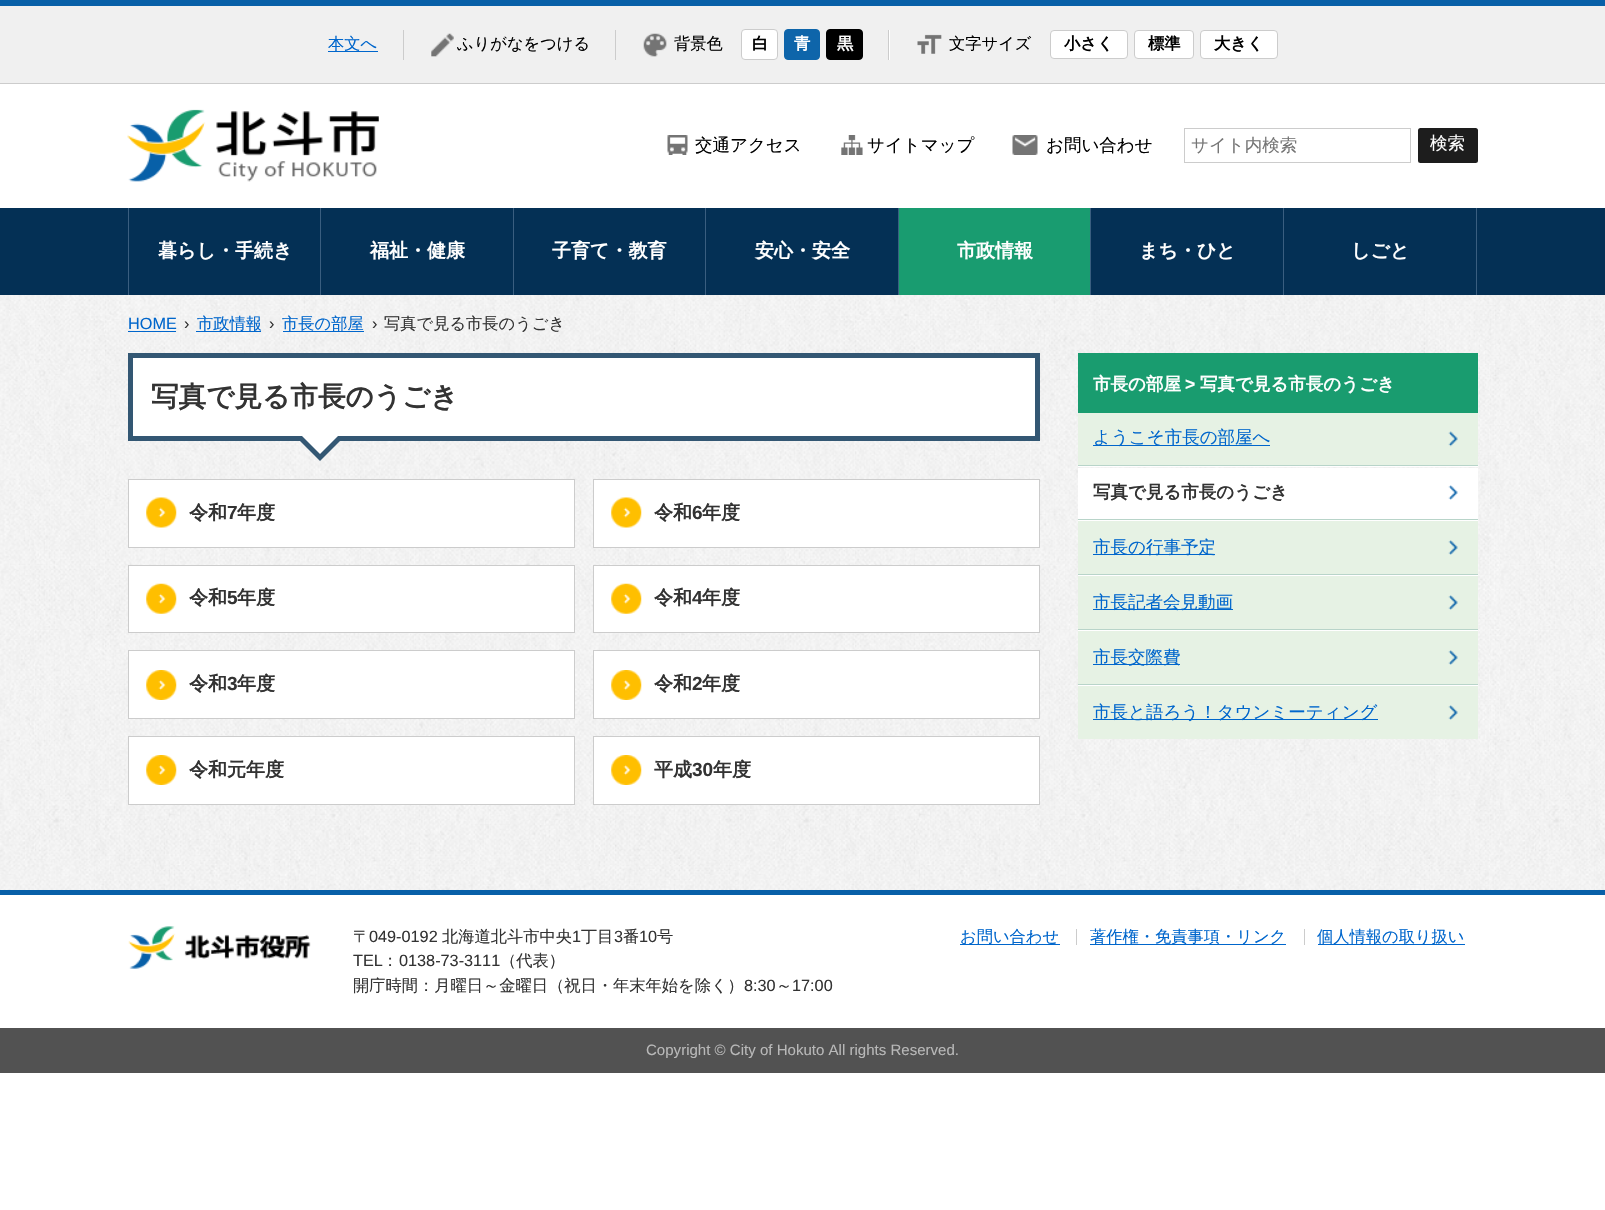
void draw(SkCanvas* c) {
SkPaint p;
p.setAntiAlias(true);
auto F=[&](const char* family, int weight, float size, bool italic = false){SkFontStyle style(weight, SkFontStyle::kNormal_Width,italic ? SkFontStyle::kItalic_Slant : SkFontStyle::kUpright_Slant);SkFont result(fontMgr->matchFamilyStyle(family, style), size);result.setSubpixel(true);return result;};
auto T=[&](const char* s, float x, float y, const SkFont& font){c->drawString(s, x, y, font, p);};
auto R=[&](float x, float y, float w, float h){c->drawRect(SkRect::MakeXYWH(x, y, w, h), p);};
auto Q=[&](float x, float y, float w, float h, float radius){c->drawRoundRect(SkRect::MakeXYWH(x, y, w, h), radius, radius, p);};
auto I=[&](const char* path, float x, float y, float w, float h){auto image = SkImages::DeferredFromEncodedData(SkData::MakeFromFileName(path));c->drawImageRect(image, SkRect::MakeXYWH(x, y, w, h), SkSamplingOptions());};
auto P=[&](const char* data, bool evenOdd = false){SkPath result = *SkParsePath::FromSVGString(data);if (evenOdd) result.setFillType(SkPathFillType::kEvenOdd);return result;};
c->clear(0xffffffff);
I("1.png",0,295,1605,595);
p.setColor(0xfff0f0f0);
R(0,6,1605,77);
p.setColor(0xff0860a8);
R(0,0,1605,6);
p.setColor(0xffcccccc);
R(0,83,1605,1);
R(403,30,1,30);
p.setColor(0xff0066cc);
R(328,51,50,1);
auto f1 = F("WenQuanYi Zen Hei",500,16.25);
T("本文へ",328,49,f1);
I("2.png",431,33,23,24);
p.setColor(0xffcccccc);
R(615,30,1,30);
p.setColor(0xff000000);
T("ふりがなをつける",457,49,f1);
I("3.png",643,33,24,24);
p.setColor(0xffcccccc);
R(888,30,1,30);
p.setColor(0xff000000);
T("背景色",674,49,f1);
p.setColor(0xffffffff);
c->drawRoundRect(SkRect::MakeXYWH(741.5,29.5,36,30),3.5,3.5,p);
p.setStroke(true);
p.setStrokeWidth(1);
p.setColor(0xffcccccc);
c->drawRoundRect(SkRect::MakeXYWH(741.5,29.5,36,30),3.5,3.5,p);
auto f2 = F("WenQuanYi Zen Hei",700,16.25);
p.setStroke(false);
p.setColor(0xff000000);
T("白",752,49,f2);
p.setColor(0xff0e65aa);
c->drawRoundRect(SkRect::MakeXYWH(784.5,29.5,35,30),3.5,3.5,p);
p.setStroke(true);
c->drawRoundRect(SkRect::MakeXYWH(784.5,29.5,35,30),3.5,3.5,p);
p.setStroke(false);
p.setColor(0xffffffff);
T("青",794,49,f2);
p.setColor(0xff000000);
c->drawRoundRect(SkRect::MakeXYWH(826.5,29.5,36,30),3.5,3.5,p);
p.setStroke(true);
c->drawRoundRect(SkRect::MakeXYWH(826.5,29.5,36,30),3.5,3.5,p);
p.setStroke(false);
p.setColor(0xffffffff);
T("黒",837,49,f2);
I("4.png",917,34,25,20);
R(889,30,1,30);
p.setColor(0xff000000);
T("文字サイズ",949,49,f1);
p.setColor(0xffffffff);
c->drawRoundRect(SkRect::MakeXYWH(1050.5,30.5,77,28),3.5,3.5,p);
p.setStroke(true);
p.setColor(0xffcccccc);
c->drawRoundRect(SkRect::MakeXYWH(1050.5,30.5,77,28),3.5,3.5,p);
p.setStroke(false);
p.setColor(0xff000000);
T("小さく",1064,49,f2);
p.setColor(0xffffffff);
c->drawRoundRect(SkRect::MakeXYWH(1134.5,30.5,59,28),3.5,3.5,p);
p.setStroke(true);
p.setColor(0xffcccccc);
c->drawRoundRect(SkRect::MakeXYWH(1134.5,30.5,59,28),3.5,3.5,p);
p.setStroke(false);
p.setColor(0xff000000);
T("標準",1148,49,f2);
p.setColor(0xffffffff);
c->drawRoundRect(SkRect::MakeXYWH(1200.5,30.5,77,28),3.5,3.5,p);
p.setStroke(true);
p.setColor(0xffcccccc);
c->drawRoundRect(SkRect::MakeXYWH(1200.5,30.5,77,28),3.5,3.5,p);
p.setStroke(false);
p.setColor(0xff000000);
T("大きく",1214,49,f2);
I("5.png",127,109,252,73);
I("6.png",667,135,21,20);
auto f3 = F("WenQuanYi Zen Hei",500,17.5);
T("交通アクセス",695,151,f3);
I("7.png",841,135,22,20);
T("サイトマップ",867,151,f3);
I("8.png",1012,135,26,20);
T("お問い合わせ",1046,151,f3);
p.setStroke(true);
p.setColor(0xffcccccc);
c->drawRect(SkRect::MakeXYWH(1184.5,128.5,226,34),p);
p.setStroke(false);
p.setColor(0xff757575);
T("サイト内検索",1191,151,f3);
p.setColor(0xff1d1d1d);
Q(1418,128,60,35,2.5);
p.setColor(0xffffffff);
T("検索",1430,149,f3);
p.setColor(0xff043055);
R(0,208,1605,87);
p.setColor(0xff3a5e80);
R(128,208,1,87);
R(320,208,1,87);
auto f4 = F("WenQuanYi Zen Hei",700,19);
p.setColor(0xffffffff);
T("暮らし・手続き",158,257,f4);
p.setColor(0xff3a5e80);
R(513,208,1,87);
p.setColor(0xffffffff);
T("福祉・健康",370,257,f4);
p.setColor(0xff3a5e80);
R(705,208,1,87);
p.setColor(0xffffffff);
T("子育て・教育",552,257,f4);
p.setColor(0xff3a5e80);
R(898,208,1,87);
p.setColor(0xffffffff);
T("安心・安全",755,257,f4);
p.setColor(0xff199c70);
R(899,208,191,87);
p.setColor(0xff3a5e80);
R(1090,208,1,87);
p.setColor(0xffffffff);
T("市政情報",957,257,f4);
p.setColor(0xff3a5e80);
R(1283,208,1,87);
p.setColor(0xffffffff);
T("まち・ひと",1139,257,f4);
p.setColor(0xff3a5e80);
R(1476,208,1,87);
p.setColor(0xffffffff);
T("しごと",1351,257,f4);
auto f5 = F("Liberation Sans",400,16.25);
p.setColor(0xff0066cc);
T("HOME",128,329,f5);
R(128,331,48,1);
p.setColor(0xff333333);
T("›",184,329,f5);
p.setColor(0xff0066cc);
R(196,331,65,1);
T("市政情報",197,329,f1);
p.setColor(0xff333333);
T("›",269,329,f5);
p.setColor(0xff0066cc);
R(283,331,81,1);
T("市長の部屋",282,329,f1);
p.setColor(0xff333333);
T("›",372,329,f5);
T("写真で見る市長のうごき",384,329,f1);
p.setColor(0xffffffff);
c->drawRect(SkRect::MakeXYWH(130.5,355.5,907,83),p);
p.setStroke(true);
p.setStrokeWidth(5);
p.setColor(0xff335773);
c->drawRect(SkRect::MakeXYWH(130.5,355.5,907,83),p);
auto f6 = F("WenQuanYi Zen Hei",700,27.6);
p.setStroke(false);
p.setColor(0xff333333);
T("写真で見る市長のうごき",151,406,f6);
p.setColor(0xff335773);
c->drawPath(P("M295 436h50l-25 25z"),p);
p.setColor(0xffffffff);
c->drawPath(P("M295 429h50l-25 25z"),p);
R(129,480,445,67);
I("9.png",146,497,31,31);
p.setStroke(true);
p.setStrokeWidth(1);
p.setColor(0xffcccccc);
c->drawRect(SkRect::MakeXYWH(128.5,479.5,446,68),p);
p.setStroke(false);
p.setColor(0xff333333);
T("令和",189,519,f4);
auto f7 = F("Liberation Sans",700,19);
T("7",227,519,f7);
T("年度",237,519,f4);
p.setColor(0xffffffff);
R(594,480,445,67);
I("9.png",611,497,31,31);
p.setStroke(true);
p.setColor(0xffcccccc);
c->drawRect(SkRect::MakeXYWH(593.5,479.5,446,68),p);
p.setStroke(false);
p.setColor(0xff333333);
T("令和",654,519,f4);
T("6",692,519,f7);
T("年度",702,519,f4);
p.setColor(0xffffffff);
R(129,566,445,66);
I("10.png",146,583,31,31);
p.setStroke(true);
p.setColor(0xffcccccc);
c->drawRect(SkRect::MakeXYWH(128.5,565.5,446,67),p);
p.setStroke(false);
p.setColor(0xff333333);
T("令和",189,604,f4);
T("5",227,604,f7);
T("年度",237,604,f4);
p.setColor(0xffffffff);
R(594,566,445,66);
I("10.png",611,583,31,31);
p.setStroke(true);
p.setColor(0xffcccccc);
c->drawRect(SkRect::MakeXYWH(593.5,565.5,446,67),p);
p.setStroke(false);
p.setColor(0xff333333);
T("令和",654,604,f4);
T("4",692,604,f7);
T("年度",702,604,f4);
p.setColor(0xffffffff);
R(129,651,445,67);
I("11.png",146,670,31,30);
p.setStroke(true);
p.setColor(0xffcccccc);
c->drawRect(SkRect::MakeXYWH(128.5,650.5,446,68),p);
p.setStroke(false);
p.setColor(0xff333333);
T("令和",189,690,f4);
T("3",227,690,f7);
T("年度",237,690,f4);
p.setColor(0xffffffff);
R(594,651,445,67);
I("11.png",611,670,31,30);
p.setStroke(true);
p.setColor(0xffcccccc);
c->drawRect(SkRect::MakeXYWH(593.5,650.5,446,68),p);
p.setStroke(false);
p.setColor(0xff333333);
T("令和",654,690,f4);
T("2",692,690,f7);
T("年度",702,690,f4);
p.setColor(0xffffffff);
R(129,737,445,67);
I("11.png",146,755,31,30);
p.setStroke(true);
p.setColor(0xffcccccc);
c->drawRect(SkRect::MakeXYWH(128.5,736.5,446,68),p);
p.setStroke(false);
p.setColor(0xff333333);
T("令和元年度",189,776,f4);
p.setColor(0xffffffff);
R(594,737,445,67);
I("11.png",611,755,31,30);
p.setStroke(true);
p.setColor(0xffcccccc);
c->drawRect(SkRect::MakeXYWH(593.5,736.5,446,68),p);
p.setStroke(false);
p.setColor(0xff333333);
T("平成",654,776,f4);
T("30",692,776,f7);
T("年度",713,776,f4);
p.setColor(0xff199c6f);
R(1078,353,400,60);
auto f8 = F("WenQuanYi Zen Hei",700,17.5);
p.setColor(0xffffffff);
T("市長の部屋",1093,390,f8);
auto f9 = F("Liberation Sans",700,17.5);
T(">",1185,390,f9);
T("写真で見る市長のうごき",1200,390,f8);
p.setColor(0xffb8d4c9);
R(1078,465,400,1);
p.setColor(0xffe6f2e4);
R(1078,413,400,52);
I("12.png",1448,431,10,16);
p.setColor(0xff0066cc);
R(1093,445,177,1);
T("ようこそ市長の部屋へ",1093,443,f3);
p.setColor(0xffffffff);
R(1078,466,400,1);
p.setColor(0xffb8d4c9);
R(1078,519,400,1);
p.setColor(0xffffffff);
R(1078,468,400,51);
I("13.png",1448,485,10,15);
p.setColor(0xff333333);
T("写真で見る市長のうごき",1093,498,f8);
p.setColor(0xffffffff);
R(1078,520,400,1);
p.setColor(0xffb8d4c9);
R(1078,574,400,1);
p.setColor(0xffe6f2e4);
R(1078,521,400,53);
I("14.png",1448,540,10,15);
p.setColor(0xff0066cc);
R(1093,554,122,1);
T("市長の行事予定",1093,553,f3);
p.setColor(0xffffffff);
R(1078,575,400,1);
p.setColor(0xffb8d4c9);
R(1078,629,400,1);
p.setColor(0xffe6f2e4);
R(1078,576,400,53);
I("14.png",1448,595,10,15);
p.setColor(0xff0066cc);
R(1093,609,140,1);
T("市長記者会見動画",1093,608,f3);
p.setColor(0xffffffff);
R(1078,630,400,1);
p.setColor(0xffb8d4c9);
R(1078,684,400,1);
p.setColor(0xffe6f2e4);
R(1078,631,400,53);
I("14.png",1448,650,10,15);
p.setColor(0xff0066cc);
R(1093,664,87,1);
T("市長交際費",1093,663,f3);
p.setColor(0xffffffff);
R(1078,685,400,1);
p.setColor(0xffe6f2e4);
R(1078,686,400,53);
I("14.png",1448,705,10,15);
p.setColor(0xff0066cc);
R(1093,719,285,1);
T("市長と語ろう！タウンミーティング",1093,718,f3);
p.setColor(0xff0860a8);
R(0,890,1605,5);
I("15.png",128,926,183,43);
p.setColor(0xff333333);
T("〒",353,942,f1);
T("049-0192",369,942,f5);
T("北海道北斗市中央",442,942,f1);
T("1",572,942,f5);
T("丁目",581,942,f1);
T("3",614,942,f5);
T("番",623,942,f1);
T("10",639,942,f5);
T("号",657,942,f1);
T("TEL",353,966,f5);
T("：",382,966,f1);
T("0138-73-3111",399,966,f5);
T("（代表）",500,966,f1);
T("開庁時間：月曜日～金曜日（祝日・年末年始を除く）",353,991,f1);
T("8:30",744,991,f5);
T("～",776,991,f1);
T("17:00",792,991,f5);
p.setColor(0xff0066cc);
R(960,944,100,1);
T("お問い合わせ",960,942,f1);
p.setColor(0xffcccccc);
R(1076,929,1,16);
p.setColor(0xff0066cc);
R(1090,944,196,1);
T("著作権・免責事項・リンク",1090,942,f1);
p.setColor(0xffcccccc);
R(1304,929,1,16);
p.setColor(0xff0066cc);
R(1318,944,147,1);
T("個人情報の取り扱い",1317,942,f1);
p.setColor(0xff525252);
R(0,1028,1605,45);
auto f10 = F("Liberation Sans",400,15.05);
p.setColor(0xffb8b8b8);
T("Copyright © City of Hokuto All rights Reserved.",646,1055,f10);
}
